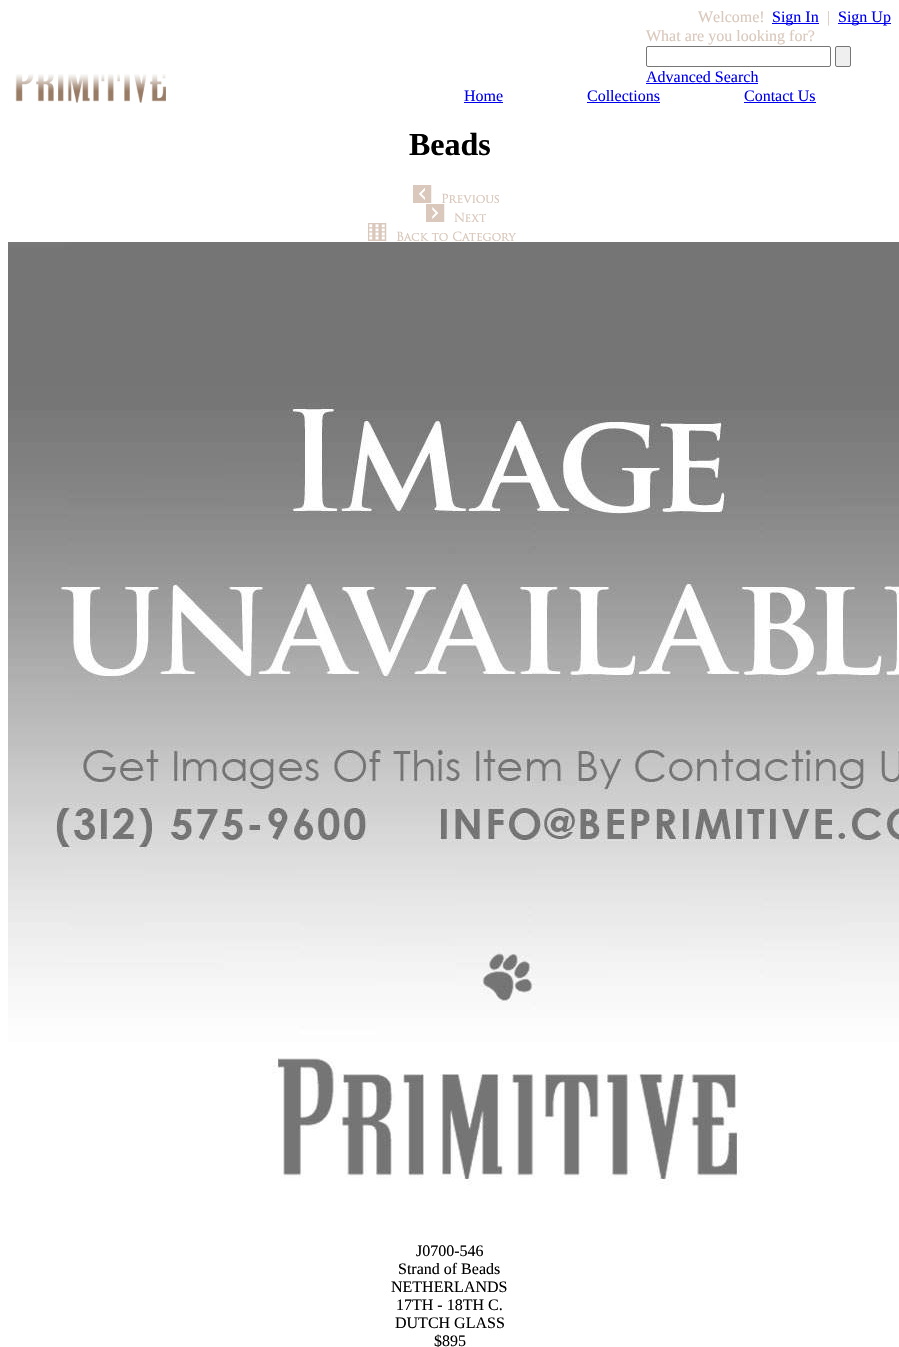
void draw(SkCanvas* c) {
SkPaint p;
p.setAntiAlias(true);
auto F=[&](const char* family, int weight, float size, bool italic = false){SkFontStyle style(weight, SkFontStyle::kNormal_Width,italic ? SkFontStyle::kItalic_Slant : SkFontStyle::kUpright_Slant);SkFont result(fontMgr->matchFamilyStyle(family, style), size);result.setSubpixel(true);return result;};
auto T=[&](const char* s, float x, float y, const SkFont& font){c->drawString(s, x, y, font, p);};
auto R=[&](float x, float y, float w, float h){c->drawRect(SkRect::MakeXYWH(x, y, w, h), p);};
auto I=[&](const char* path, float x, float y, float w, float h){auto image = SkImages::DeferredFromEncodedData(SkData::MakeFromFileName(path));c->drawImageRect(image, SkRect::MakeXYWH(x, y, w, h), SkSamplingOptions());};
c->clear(0xffffffff);
auto f1 = F("Liberation Serif",400,16);
p.setColor(0xffd9c8bb);
T("Welcome!",698,22,f1);
p.setColor(0xff0000ee);
R(772,23,47,1);
T("Sign In",772,22,f1);
p.setColor(0xffd9c8bb);
T("|",827,22,f1);
p.setColor(0xff0000ee);
R(838,23,53,1);
T("Sign Up",838,22,f1);
p.setColor(0xffd9c8bb);
T("What are you looking for?",646,41,f1);
p.setStroke(true);
p.setStrokeWidth(1);
p.setColor(0xff767676);
c->drawRoundRect(SkRect::MakeXYWH(646.5,46.5,184,20),1.5,1.5,p);
p.setStroke(false);
p.setColor(0xffefefef);
c->drawRoundRect(SkRect::MakeXYWH(835.5,46.5,15,20),1.5,1.5,p);
p.setStroke(true);
p.setColor(0xff767676);
c->drawRoundRect(SkRect::MakeXYWH(835.5,46.5,15,20),1.5,1.5,p);
p.setStroke(false);
p.setColor(0xff0000ee);
T("Advanced Search",646,82,f1);
R(646,83,112,1);
I("1.png",15,74,151,29);
T("Home",464,101,f1);
R(464,102,39,1);
T("Collections",587,101,f1);
R(587,102,73,1);
T("Contact Us",744,101,f1);
R(744,102,72,1);
auto f2 = F("Liberation Serif",700,32);
p.setColor(0xff000000);
T("Beads",409,155,f2);
I("2.png",413,185,86,18);
I("3.png",426,204,60,18);
I("4.png",368,223,148,18);
I("5.png",8,242,891,944);
T("J0700-546",416,1256,f1);
T("Strand of Beads",398,1274,f1);
T("NETHERLANDS",391,1292,f1);
T("17TH - 18TH C.",396,1310,f1);
T("DUTCH GLASS",395,1328,f1);
T("$895",434,1346,f1);
}
